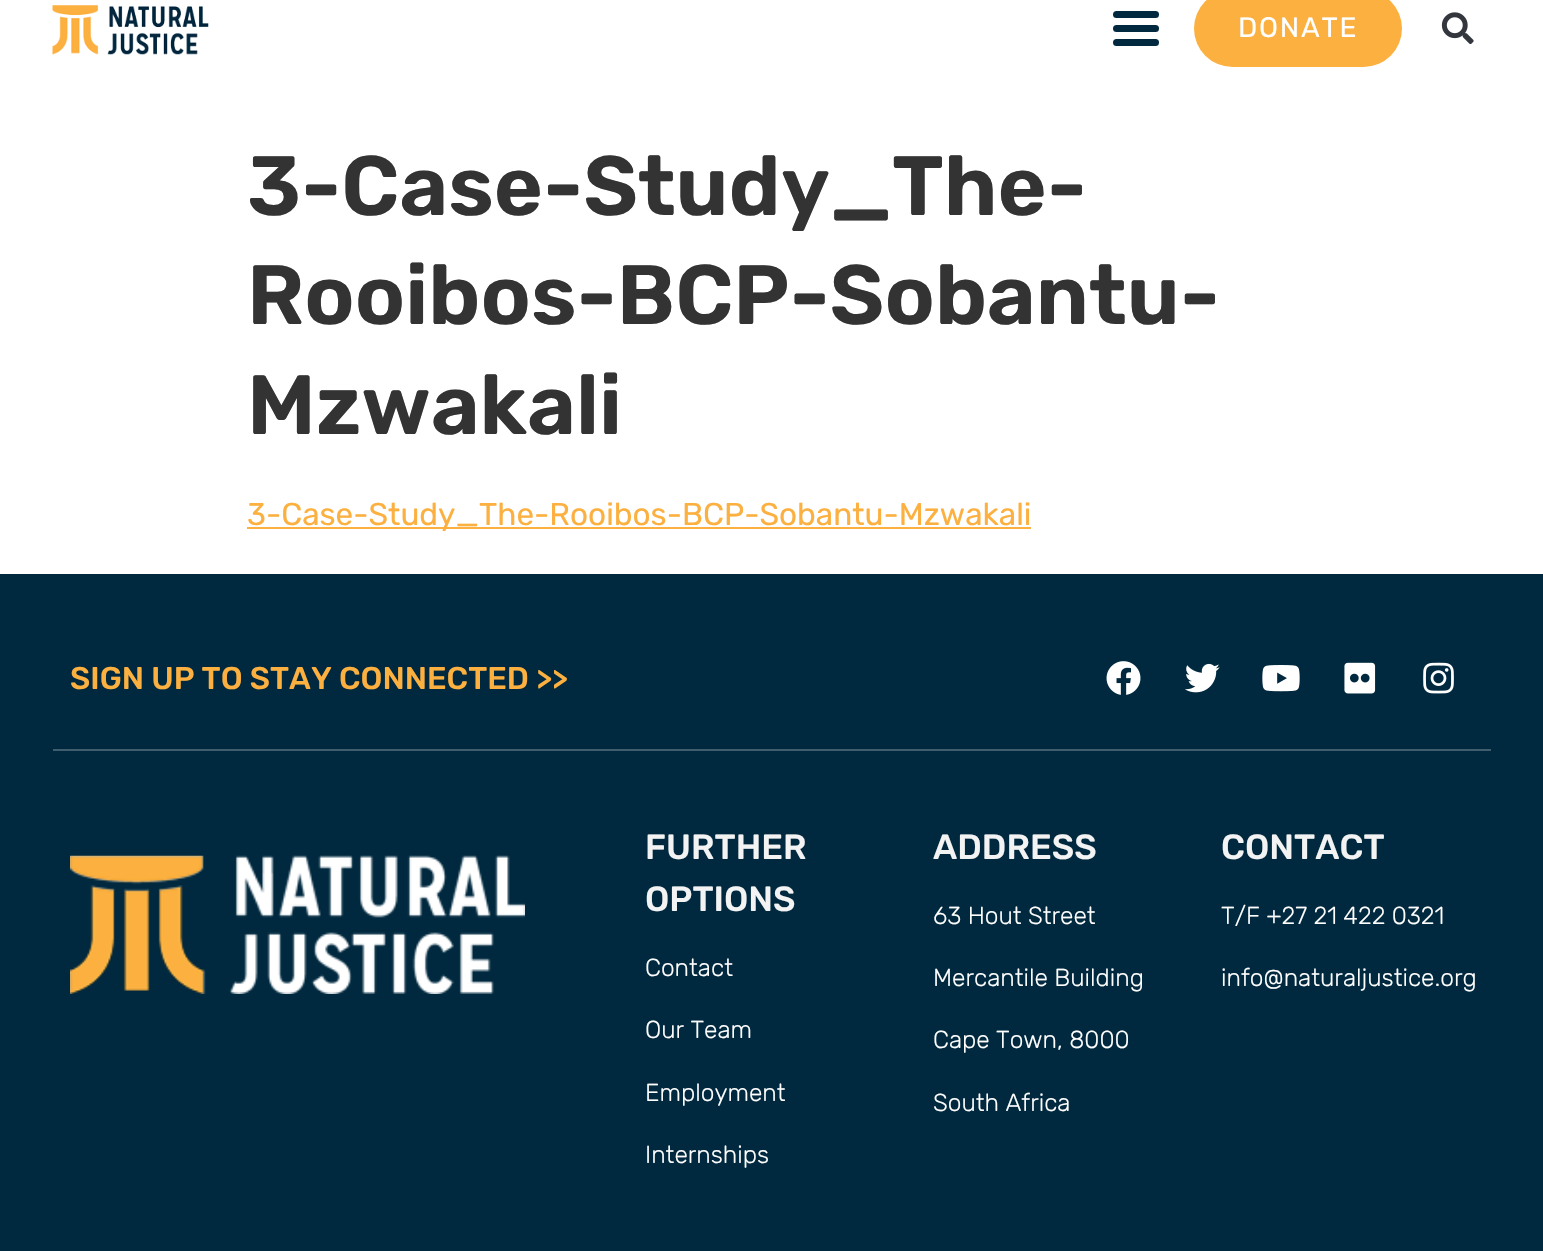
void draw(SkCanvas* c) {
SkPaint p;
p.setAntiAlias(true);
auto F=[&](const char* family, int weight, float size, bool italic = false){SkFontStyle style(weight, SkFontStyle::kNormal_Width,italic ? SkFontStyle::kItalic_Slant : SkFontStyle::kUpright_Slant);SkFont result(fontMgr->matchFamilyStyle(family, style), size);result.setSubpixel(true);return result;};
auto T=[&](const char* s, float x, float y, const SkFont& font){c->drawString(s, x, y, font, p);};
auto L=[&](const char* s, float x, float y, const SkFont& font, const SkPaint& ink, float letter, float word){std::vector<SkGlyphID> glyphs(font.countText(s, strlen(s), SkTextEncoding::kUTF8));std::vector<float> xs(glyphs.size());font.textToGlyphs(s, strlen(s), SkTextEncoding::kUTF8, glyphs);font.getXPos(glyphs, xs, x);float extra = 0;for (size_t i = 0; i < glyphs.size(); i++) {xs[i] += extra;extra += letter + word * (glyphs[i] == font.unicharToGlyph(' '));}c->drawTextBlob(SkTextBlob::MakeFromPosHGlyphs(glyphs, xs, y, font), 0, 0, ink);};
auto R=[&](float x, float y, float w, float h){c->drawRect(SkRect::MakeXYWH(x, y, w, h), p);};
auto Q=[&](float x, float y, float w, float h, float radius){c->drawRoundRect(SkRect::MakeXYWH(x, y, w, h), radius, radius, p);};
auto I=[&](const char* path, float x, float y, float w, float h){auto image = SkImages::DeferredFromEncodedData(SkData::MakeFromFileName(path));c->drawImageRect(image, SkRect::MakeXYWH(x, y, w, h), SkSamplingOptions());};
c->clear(0xffffffff);
I("1.png",52,5,157,50);
p.setColor(0xff00283e);
Q(1113,25,46,7,3.5);
Q(1113,11,46,7,3.5);
Q(1113,39,46,7,3.5);
p.setColor(0xfffcb040);
Q(1194,-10,208,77,38.5);
auto f1 = F("Rubik",400,28);
p.setColor(0xffffffff);
L("DONATE",1238,37,f1,p,1.75,0);
I("2.png",1441,12,33,33);
auto f2 = F("Rubik",600,84);
p.setColor(0xff333333);
T("3-Case-Study_The-",247,215,f2);
T("Rooibos-BCP-Sobantu-",247,324,f2);
T("Mzwakali",247,434,f2);
p.setColor(0xfffcb040);
R(247,527,784,2);
auto f3 = F("Rubik",400,31.5);
T("3-Case-Study_The-Rooibos-BCP-Sobantu-Mzwakali",247,525,f3);
p.setColor(0xff00283e);
R(0,574,1543,677);
p.setColor(0xff3f5d6d);
R(53,749,1438,2);
auto f4 = F("Rubik",500,31.5);
p.setColor(0xfffcb040);
T("SIGN UP TO STAY CONNECTED >>",70,689,f4);
I("3.png",1106,661,35,34);
I("4.png",1185,663,35,30);
I("5.png",1262,665,38,27);
I("6.png",1344,662,32,32);
I("7.png",1423,662,31,32);
I("8.png",70,855,455,139);
auto f5 = F("Rubik",500,35);
p.setColor(0xfff3f3f3);
T("FURTHER",645,859,f5);
T("OPTIONS",645,911,f5);
auto f6 = F("Rubik",300,24.5);
p.setColor(0xffffffff);
T("Contact",645,976,f6);
T("Our Team",645,1038,f6);
T("Employment",645,1101,f6);
T("Internships",645,1163,f6);
p.setColor(0xfff3f3f3);
T("ADDRESS",933,859,f5);
p.setColor(0xffffffff);
T("63 Hout Street",933,924,f6);
T("Mercantile Building",933,986,f6);
T("Cape Town, 8000",933,1048,f6);
T("South Africa",933,1111,f6);
p.setColor(0xfff3f3f3);
T("CONTACT",1221,859,f5);
p.setColor(0xffffffff);
T("T/F +27 21 422 0321",1221,924,f6);
T("info@naturaljustice.org",1221,986,f6);
}
